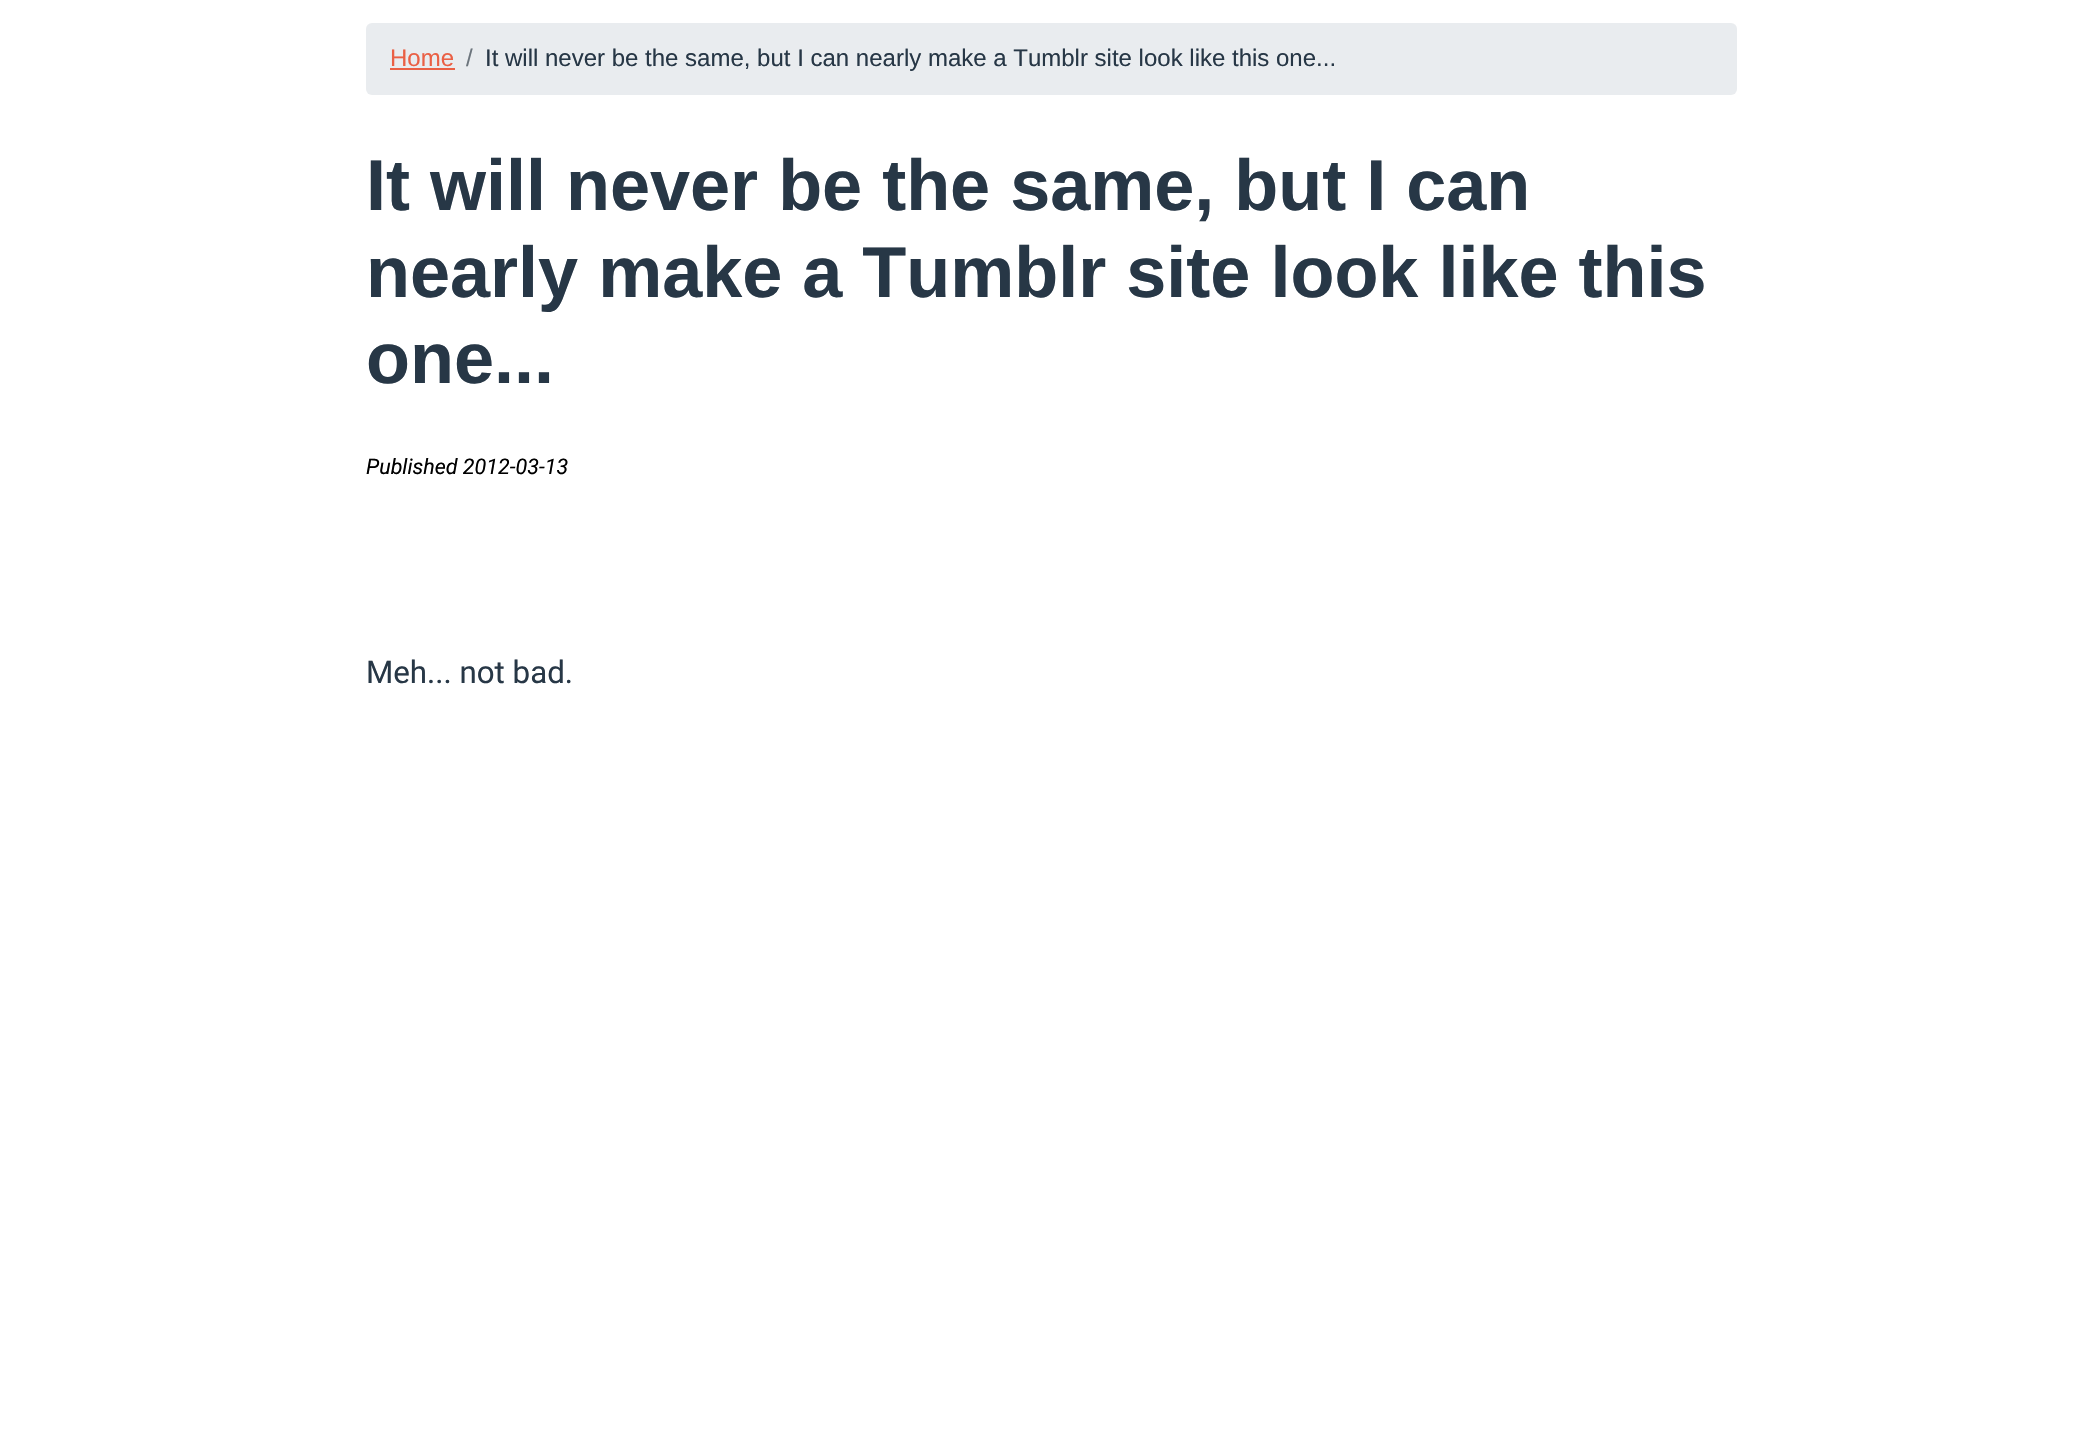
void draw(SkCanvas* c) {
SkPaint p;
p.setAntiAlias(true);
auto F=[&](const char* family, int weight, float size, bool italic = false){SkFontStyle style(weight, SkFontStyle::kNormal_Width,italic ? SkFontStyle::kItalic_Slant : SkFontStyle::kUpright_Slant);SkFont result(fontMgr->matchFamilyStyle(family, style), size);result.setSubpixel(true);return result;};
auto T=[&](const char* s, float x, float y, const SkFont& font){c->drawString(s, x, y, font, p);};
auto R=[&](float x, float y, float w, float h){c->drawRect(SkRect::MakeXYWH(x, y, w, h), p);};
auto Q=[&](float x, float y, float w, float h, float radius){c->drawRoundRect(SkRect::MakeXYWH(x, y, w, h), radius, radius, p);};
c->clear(0xffffffff);
p.setColor(0xffe9ecef);
Q(366,23,1371,72,6);
auto f1 = F("Liberation Sans",400,24);
p.setColor(0xffea6045);
T("Home",390,66,f1);
R(390,68,65,2);
p.setColor(0xff6c757d);
T("/",466,66,f1);
p.setColor(0xff273746);
T("It will never be the same, but I can nearly make a Tumblr site look like this one...",485,66,f1);
auto f2 = F("Liberation Sans",700,72);
T("It will never be the same, but I can",366,210,f2);
T("nearly make a Tumblr site look like this",366,297,f2);
T("one...",366,383,f2);
auto f3 = F("Roboto",400,21.5,true);
p.setColor(0xff000000);
T("Published 2012-03-13",366,474,f3);
auto f4 = F("Roboto",400,31.25);
p.setColor(0xff273746);
T("Meh... not bad.",366,683,f4);
}
